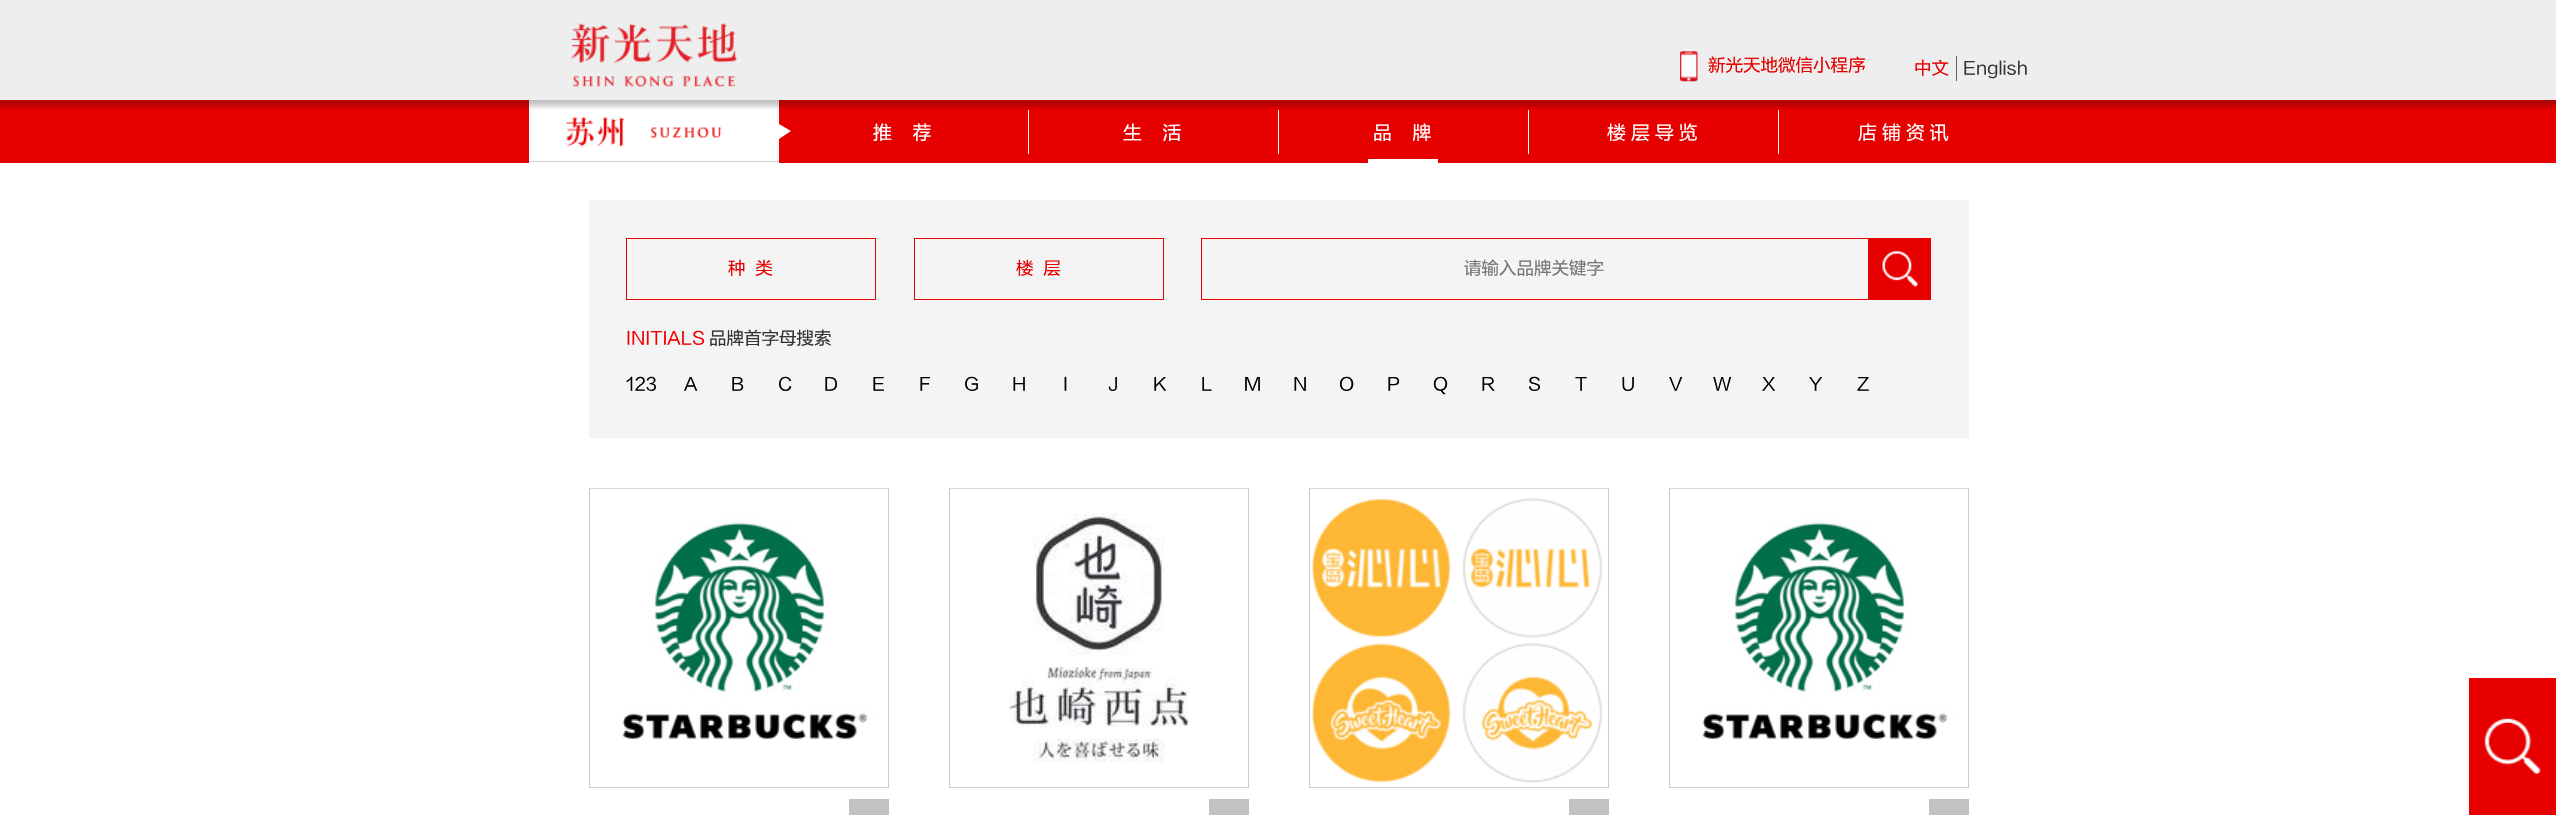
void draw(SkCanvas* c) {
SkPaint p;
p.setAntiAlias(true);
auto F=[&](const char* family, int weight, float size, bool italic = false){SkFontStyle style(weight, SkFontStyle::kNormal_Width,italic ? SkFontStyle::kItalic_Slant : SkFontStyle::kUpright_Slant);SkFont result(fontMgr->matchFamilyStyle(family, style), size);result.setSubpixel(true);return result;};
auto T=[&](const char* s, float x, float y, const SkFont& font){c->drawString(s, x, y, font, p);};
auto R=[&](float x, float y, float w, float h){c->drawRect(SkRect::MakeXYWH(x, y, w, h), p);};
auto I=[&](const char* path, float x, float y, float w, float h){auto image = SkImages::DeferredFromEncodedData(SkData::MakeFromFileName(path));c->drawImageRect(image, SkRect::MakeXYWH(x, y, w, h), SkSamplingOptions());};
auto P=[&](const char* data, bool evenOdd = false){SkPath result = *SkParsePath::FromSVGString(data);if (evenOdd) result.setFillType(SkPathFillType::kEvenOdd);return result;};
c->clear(0xffffffff);
p.setColor(0xffeeeeee);
R(0,0,2556,100);
I("1.png",571,23,166,64);
I("2.png",1680,51,18,31);
auto f1 = F("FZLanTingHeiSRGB",400,17.5);
p.setColor(0xffe60000);
T("新光天地微信小程序",1708,71,f1);
T("中文",1914,74,f1);
p.setColor(0xff666666);
R(1956,56,1,25);
p.setColor(0xff333333);
T("English",1963,74,f1);
p.setColor(0xffe60000);
R(0,100,2556,63);
p.setColor(0xffffffff);
R(529,100,250,63);
I("3.png",0,100,2556,10);
p.setColor(0xffcccccc);
R(529,161,250,1);
I("4.png",566,117,156,30);
p.setColor(0xffffffff);
c->drawPath(P("M779 139v-15l12 7z"),p);
R(1028,110,1,44);
auto f2 = F("FZLanTingHeiSRGB",400,18.75);
T("推    荐",873,139,f2);
R(1278,110,1,44);
T("生    活",1123,139,f2);
R(1528,110,1,44);
R(1368,159,70,4);
T("品    牌",1373,139,f2);
R(1778,110,1,44);
T("楼 层 导 览",1607,139,f2);
T("店 铺 资 讯",1858,139,f2);
p.setColor(0xfff4f4f4);
R(589,200,1380,238);
p.setStroke(true);
p.setStrokeWidth(1);
p.setColor(0xffe60000);
c->drawRect(SkRect::MakeXYWH(626.5,238.5,249,61),p);
p.setStroke(false);
T("种  类",728,274,f1);
p.setStroke(true);
c->drawRect(SkRect::MakeXYWH(914.5,238.5,249,61),p);
p.setStroke(false);
T("楼  层",1016,274,f1);
p.setStroke(true);
c->drawRect(SkRect::MakeXYWH(1201.5,238.5,667,61),p);
p.setStroke(false);
p.setColor(0xff757575);
T("请输入品牌关键字",1464,274,f1);
p.setColor(0xffe60000);
R(1869,238,62,62);
I("5.png",1882,251,36,36);
p.setColor(0xffef0000);
T("INITIALS",626,344,f1);
p.setColor(0xff333333);
T("品牌首字母搜索",709,344,f1);
p.setColor(0xff000000);
T("123",626,390,f1);
T("A",684,390,f1);
T("B",731,390,f1);
T("C",778,390,f1);
T("D",824,390,f1);
T("E",872,390,f1);
T("F",919,390,f1);
T("G",964,390,f1);
T("H",1012,390,f1);
T("I",1063,390,f1);
T("J",1108,390,f1);
T("K",1153,390,f1);
T("L",1201,390,f1);
T("M",1244,390,f1);
T("N",1293,390,f1);
T("O",1339,390,f1);
T("P",1387,390,f1);
T("Q",1433,390,f1);
T("R",1481,390,f1);
T("S",1528,390,f1);
T("T",1575,390,f1);
T("U",1621,390,f1);
T("V",1669,390,f1);
T("W",1713,390,f1);
T("X",1762,390,f1);
T("Y",1809,390,f1);
T("Z",1857,390,f1);
p.setStroke(true);
p.setColor(0xffcccccc);
c->drawRect(SkRect::MakeXYWH(589.5,488.5,299,299),p);
I("6.png",590,488,298,251);
p.setStroke(false);
p.setColor(0xffc2c3c3);
R(849,799,40,16);
p.setStroke(true);
p.setColor(0xffcccccc);
c->drawRect(SkRect::MakeXYWH(949.5,488.5,299,299),p);
I("7.png",950,488,298,275);
p.setStroke(false);
p.setColor(0xffc2c3c3);
R(1209,799,40,16);
p.setStroke(true);
p.setColor(0xffcccccc);
c->drawRect(SkRect::MakeXYWH(1309.5,488.5,299,299),p);
I("8.png",1310,488,298,295);
p.setStroke(false);
p.setColor(0xffc2c3c3);
R(1569,799,40,16);
p.setStroke(true);
p.setColor(0xffcccccc);
c->drawRect(SkRect::MakeXYWH(1669.5,488.5,299,299),p);
I("6.png",1670,488,298,251);
p.setStroke(false);
p.setColor(0xffc2c3c3);
R(1929,799,40,16);
p.setColor(0xffe60000);
R(2469,678,87,137);
I("9.png",2484,718,57,56);
}
